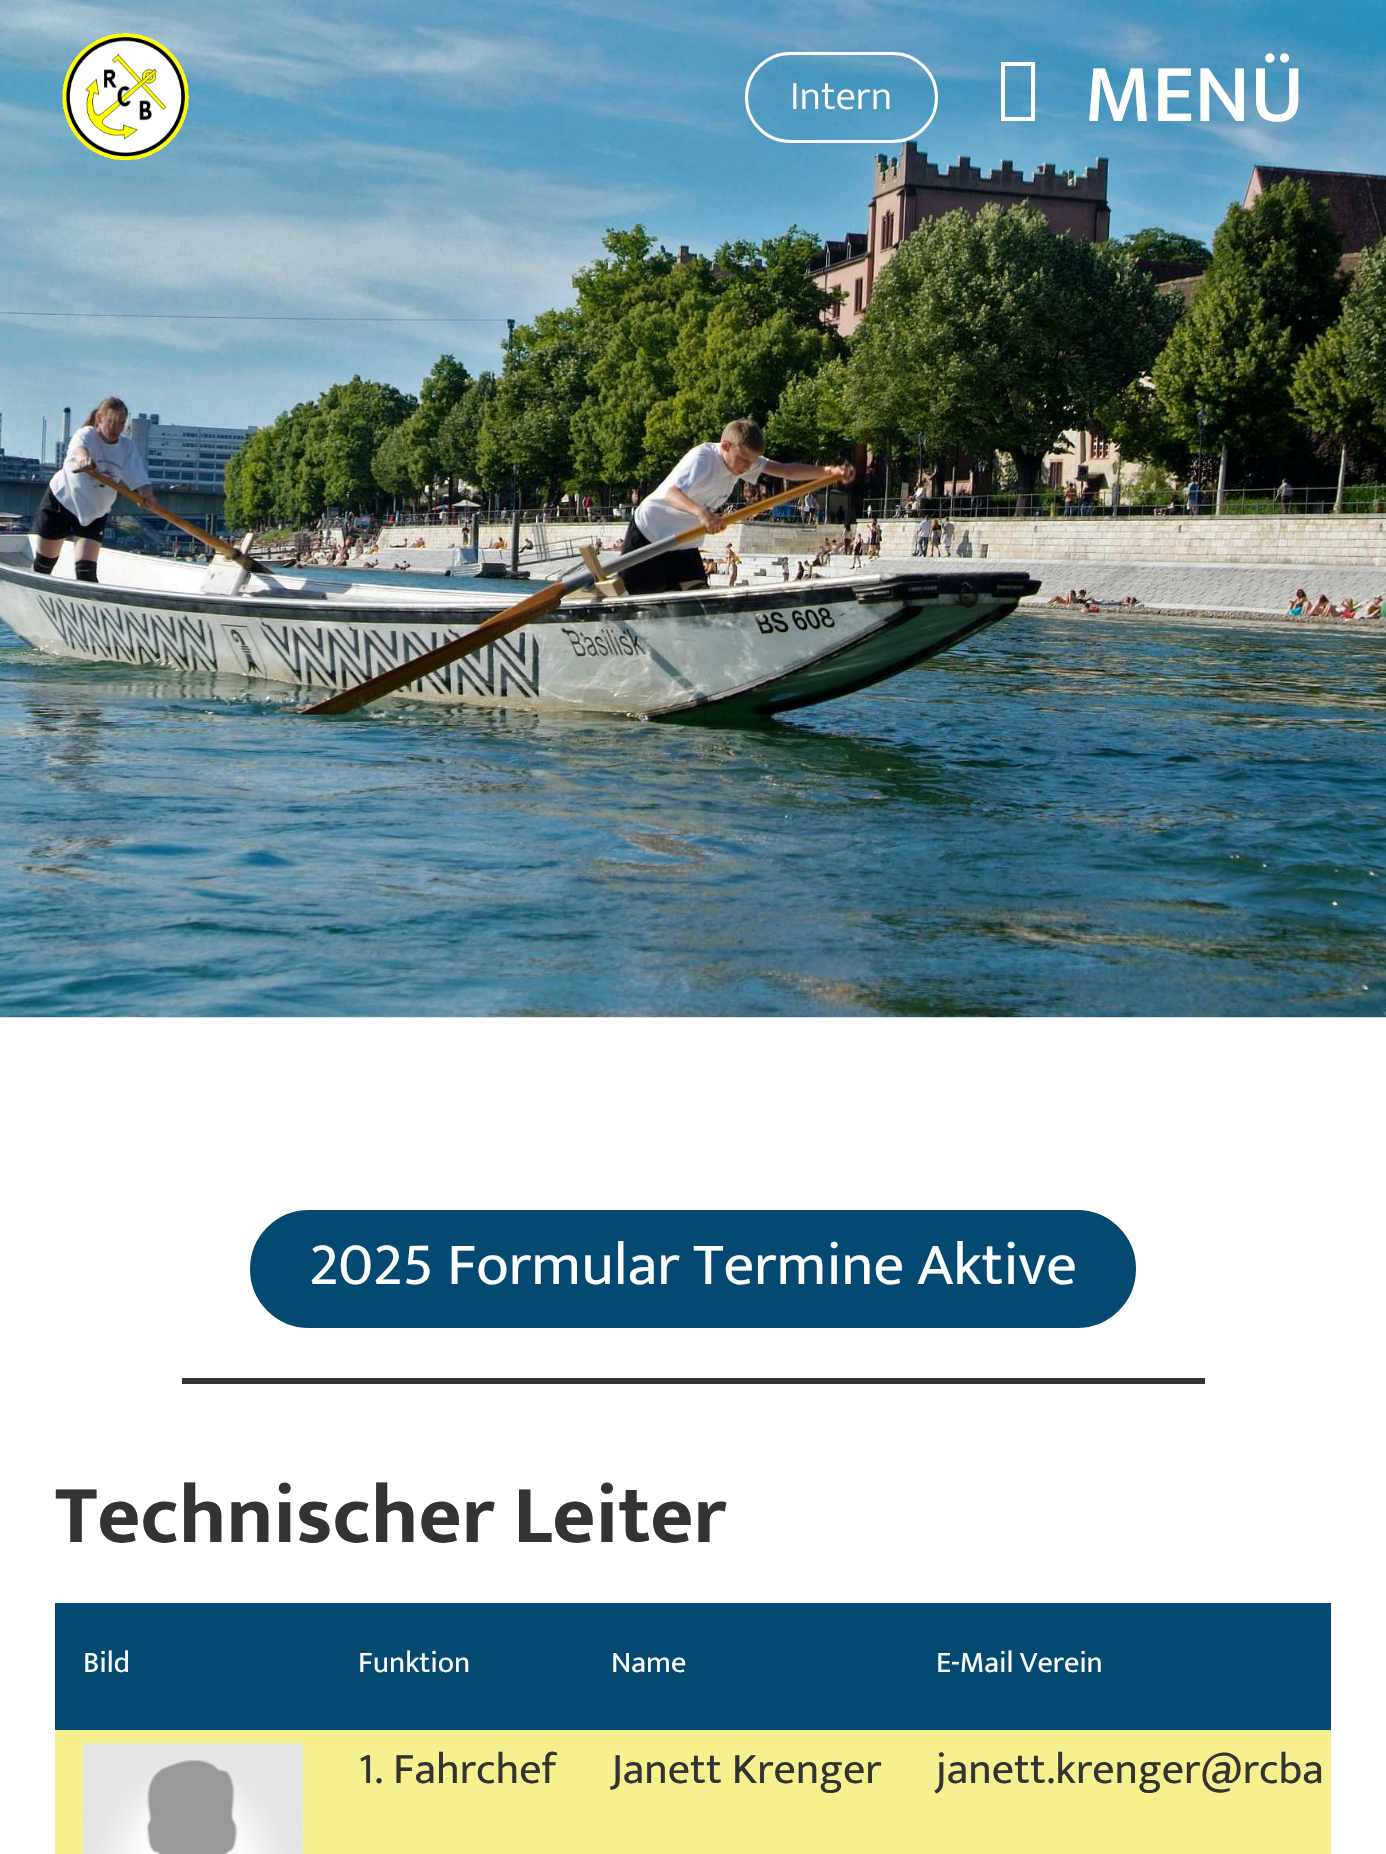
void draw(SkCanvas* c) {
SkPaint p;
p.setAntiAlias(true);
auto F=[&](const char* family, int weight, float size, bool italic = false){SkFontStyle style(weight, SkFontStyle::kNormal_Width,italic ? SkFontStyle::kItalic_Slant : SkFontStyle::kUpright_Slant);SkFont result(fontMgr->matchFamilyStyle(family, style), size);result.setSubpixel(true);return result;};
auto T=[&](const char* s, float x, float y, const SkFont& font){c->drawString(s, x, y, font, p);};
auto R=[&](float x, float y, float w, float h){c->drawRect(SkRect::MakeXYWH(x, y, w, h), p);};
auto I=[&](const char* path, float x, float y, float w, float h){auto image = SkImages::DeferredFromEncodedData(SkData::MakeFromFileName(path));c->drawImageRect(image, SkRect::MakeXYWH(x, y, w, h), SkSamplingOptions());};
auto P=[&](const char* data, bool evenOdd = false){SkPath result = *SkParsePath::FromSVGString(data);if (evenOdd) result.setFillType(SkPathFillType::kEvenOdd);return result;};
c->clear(0xffffffff);
I("2.png",0,0,1386,1018);
I("1.png",62,33,127,128);
p.setStroke(true);
p.setStrokeWidth(3);
p.setColor(0xffffffff);
c->drawRoundRect(SkRect::MakeXYWH(746.5,53.5,190,88),44,44,p);
auto f1 = F("Mukta",300,41);
p.setStroke(false);
T("Intern",790,109,f1);
c->drawPath(P("M1001 121v-59h34v59zm4-4h26v-51h-26z"),p);
auto f2 = F("Mukta",500,83.25);
T("MENÜ",1084,121,f2);
p.setColor(0xff044972);
c->drawRoundRect(SkRect::MakeXYWH(251.5,1211.5,883,115),57.5,57.5,p);
p.setStroke(true);
c->drawRoundRect(SkRect::MakeXYWH(251.5,1211.5,883,115),57.5,57.5,p);
auto f3 = F("Mukta",400,60.5);
p.setStroke(false);
p.setColor(0xffffffff);
T("2025 Formular Termine Aktive",309,1284,f3);
p.setColor(0xff333333);
R(182,1378,1023,6);
auto f4 = F("Mukta",700,83.25);
T("Technischer Leiter",55,1542,f4);
p.setColor(0xff044972);
R(55,1603,1276,127);
auto f5 = F("Mukta",400,30.25);
p.setColor(0xffffffff);
T("Bild",83,1672,f5);
T("Funktion",358,1672,f5);
T("Name",611,1672,f5);
T("E-Mail Verein",936,1672,f5);
p.setColor(0xfff7f08e);
R(55,1730,1276,124);
I("3.png",83,1743,220,111);
auto f6 = F("Mukta",400,44);
p.setColor(0xff333333);
T("1. Fahrchef",358,1783,f6);
T("Janett Krenger",611,1783,f6);
T("janett.krenger@rcba",936,1783,f6);
}
